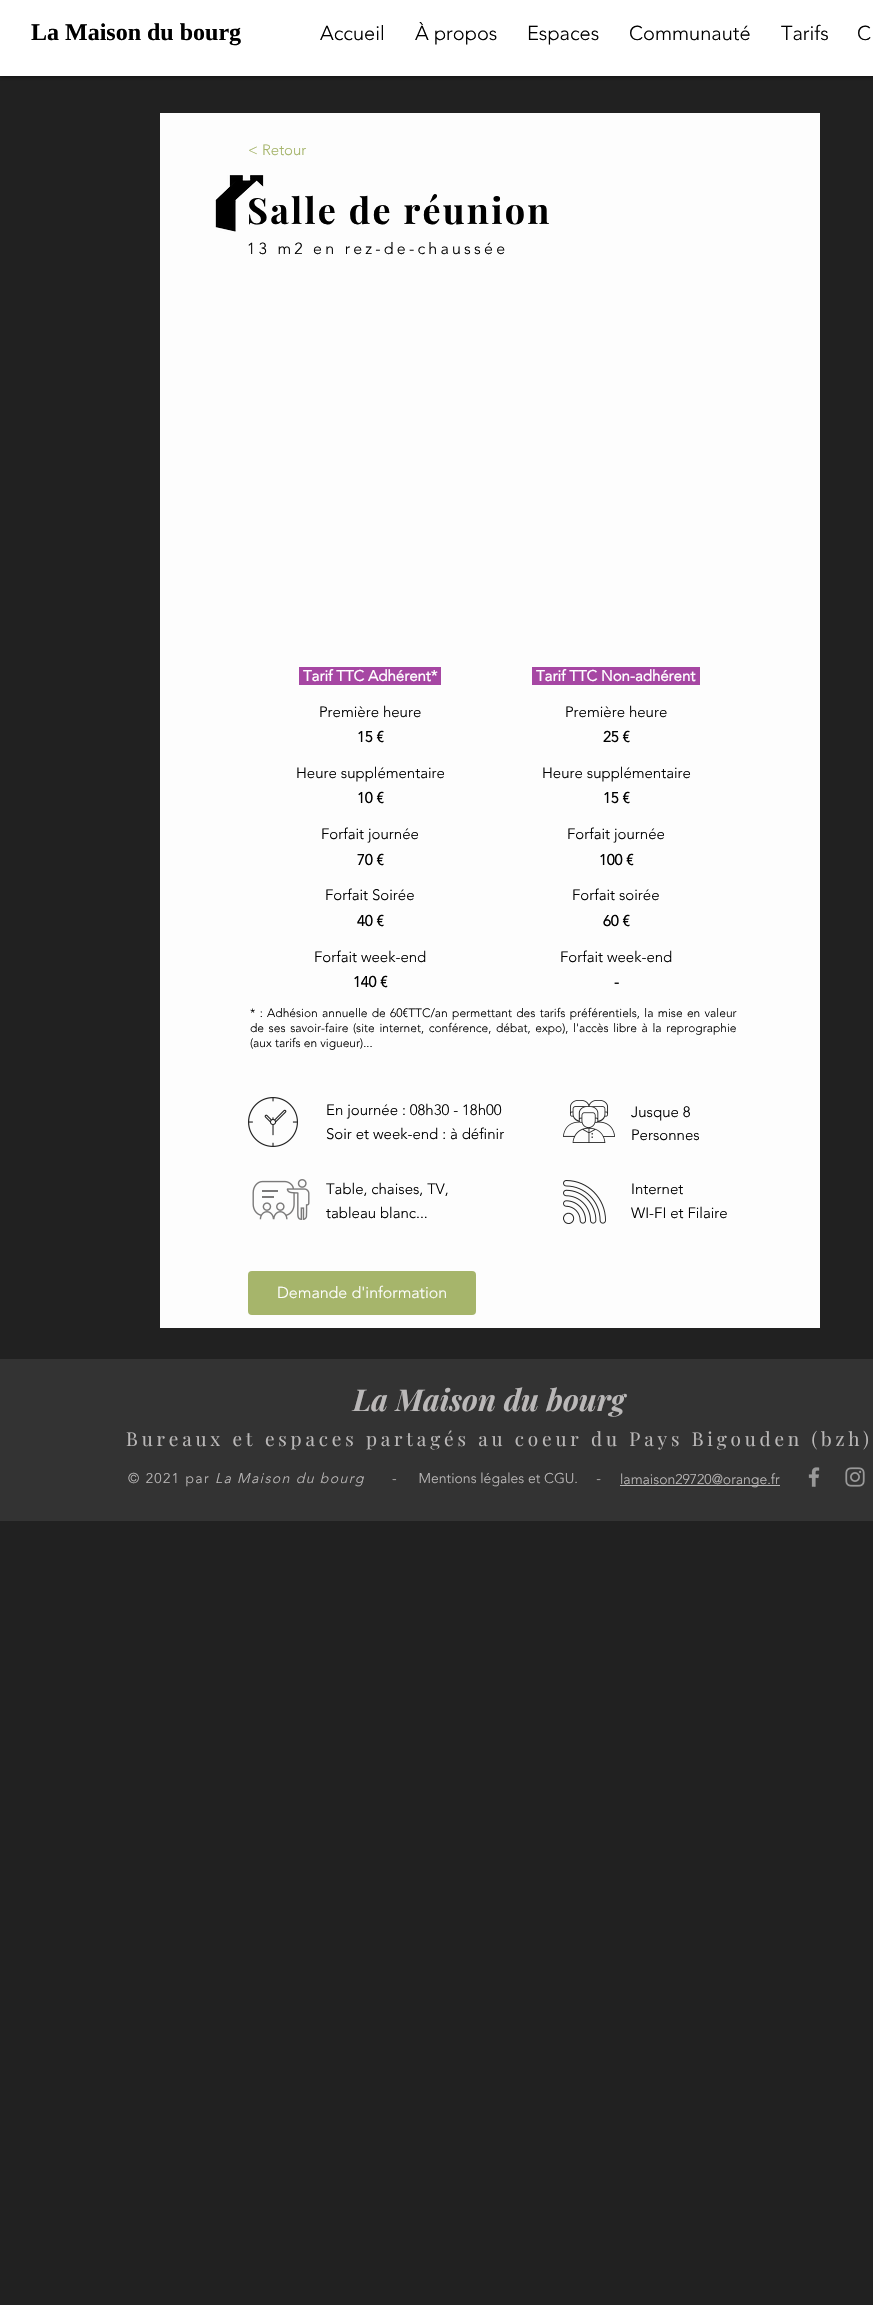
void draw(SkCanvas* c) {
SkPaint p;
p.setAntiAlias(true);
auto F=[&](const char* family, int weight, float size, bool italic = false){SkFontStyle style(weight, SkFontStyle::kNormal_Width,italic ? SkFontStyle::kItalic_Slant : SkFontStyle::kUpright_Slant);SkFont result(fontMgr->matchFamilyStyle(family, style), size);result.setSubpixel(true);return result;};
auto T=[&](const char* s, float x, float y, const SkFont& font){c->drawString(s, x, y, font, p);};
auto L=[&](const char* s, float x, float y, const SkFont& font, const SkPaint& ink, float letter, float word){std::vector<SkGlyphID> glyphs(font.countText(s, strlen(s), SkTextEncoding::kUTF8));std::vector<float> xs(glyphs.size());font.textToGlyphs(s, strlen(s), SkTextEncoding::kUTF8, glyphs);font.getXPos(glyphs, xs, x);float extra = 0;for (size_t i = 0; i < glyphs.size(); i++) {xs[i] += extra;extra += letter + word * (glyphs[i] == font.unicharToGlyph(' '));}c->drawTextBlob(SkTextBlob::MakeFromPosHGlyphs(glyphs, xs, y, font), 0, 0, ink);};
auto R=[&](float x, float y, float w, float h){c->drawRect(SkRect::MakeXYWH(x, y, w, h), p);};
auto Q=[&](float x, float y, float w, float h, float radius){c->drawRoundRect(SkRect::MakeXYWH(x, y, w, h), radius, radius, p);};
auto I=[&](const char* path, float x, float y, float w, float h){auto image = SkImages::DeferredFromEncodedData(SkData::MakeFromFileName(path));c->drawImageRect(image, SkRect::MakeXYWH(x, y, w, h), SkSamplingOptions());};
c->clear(0xff212121);
p.setColor(0xb3000000);
p.setMaskFilter(SkMaskFilter::MakeBlur(kNormal_SkBlurStyle, 2.5));
c->drawRect(SkRect::MakeXYWH(0,0,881,76),p);
p.setMaskFilter(nullptr);
p.setColor(0xffffffff);
R(0,0,873,76);
auto f1 = F("Liberation Serif",700,24);
p.setColor(0xff000000);
T("La Maison du bourg",31,40,f1);
auto f2 = F("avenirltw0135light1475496",300,20);
T("Accueil",320,40,f2);
T("À propos",415,40,f2);
T("Espaces",527,40,f2);
T("Communauté",629,40,f2);
T("Tarifs",781,40,f2);
T("C",857,40,f2);
p.setColor(0xfffdfdfd);
R(160,113,660,1215);
auto f3 = F("avenirltw0135light1475496",300,15);
p.setColor(0xffa6b56b);
T("< Retour",248,155,f3);
I("1.png",215,175,49,57);
auto f4 = F("Playfair Display",700,36);
p.setColor(0xff000000);
L("Salle de réunion",247,224,f4,p,2.2,0);
auto f5 = F("avenirltw0135light1475496",300,16);
L("13 m2 en rez-de-chaussée",247,254,f5,p,3.2,0);
p.setColor(0xffa647a3);
R(299,667,142,18);
auto f6 = F("avenirltw0135light1475496",700,15);
p.setColor(0xffffffff);
T("Tarif TTC Adhérent*",303,681,f6);
p.setColor(0xff000000);
T("Première heure",319,717,f3);
T("15 €",357,742,f6);
T("Heure supplémentaire",296,778,f3);
T("10 €",357,803,f6);
T("Forfait journée",321,839,f3);
T("70 €",357,865,f6);
T("Forfait Soirée",325,900,f3);
T("40 €",357,926,f6);
T("Forfait week-end",314,962,f3);
T("140 €",353,987,f6);
p.setColor(0xffa647a3);
R(532,667,168,18);
p.setColor(0xffffffff);
T("Tarif TTC Non-adhérent",536,681,f6);
p.setColor(0xff000000);
T("Première heure",565,717,f3);
T("25 €",603,742,f6);
T("Heure supplémentaire",542,778,f3);
T("15 €",603,803,f6);
T("Forfait journée",567,839,f3);
T("100 €",599,865,f6);
T("Forfait soirée",572,900,f3);
T("60 €",603,926,f6);
T("Forfait week-end",560,962,f3);
T("-",614,987,f6);
auto f7 = F("avenirltw0135light1475496",300,12);
L("* : Adhésion annuelle de 60€TTC/an permettant des tarifs préférentiels, la mise en valeur",250,1017,f7,p,0,1.2);
L("de ses savoir-faire (site internet, conférence, débat, expo), l'accès libre à la reprographie",250,1032,f7,p,0,1.5);
T("(aux tarifs en vigueur)...",250,1047,f7);
I("2.png",248,1097,50,50);
T("En journée : 08h30 - 18h00",326,1115,f3);
T("Soir et week-end : à définir",326,1139,f3);
I("3.png",563,1100,52,43);
T("Jusque 8",631,1117,f3);
T("Personnes",631,1140,f3);
I("4.png",252,1179,58,41);
T("Table, chaises, TV,",326,1194,f3);
T("tableau blanc...",326,1218,f3);
I("5.png",563,1180,43,44);
T("Internet",631,1194,f3);
T("WI-FI et Filaire",631,1218,f3);
p.setColor(0xffa6b56b);
Q(248,1271,228,44,4);
p.setColor(0xffffffff);
T("Demande d'information",277,1298,f5);
p.setColor(0xff333333);
R(0,1359,873,162);
auto f8 = F("Playfair Display",700,30,true);
p.setColor(0xffbab8b8);
T("La Maison du bourg",353,1411,f8);
auto f9 = F("Playfair Display",400,19);
L("Bureaux et espaces partagés au coeur du Pays Bigouden (bzh)",126,1446,f9,p,3.8,0);
auto f10 = F("avenirltw0135light1475496",300,14);
L("© 2021 par",128,1483,f10,p,1.4,0);
auto f11 = F("avenirltw0135light1475496",300,14,true);
L("La Maison du bourg",215,1483,f11,p,1.4,0);
T("-      Mentions légales et CGU.     -",392,1483,f10);
R(620,1485,160,1);
T("lamaison29720@orange.fr",620,1484,f10);
I("6.png",808,1467,12,20);
I("7.png",845,1467,20,20);
}
